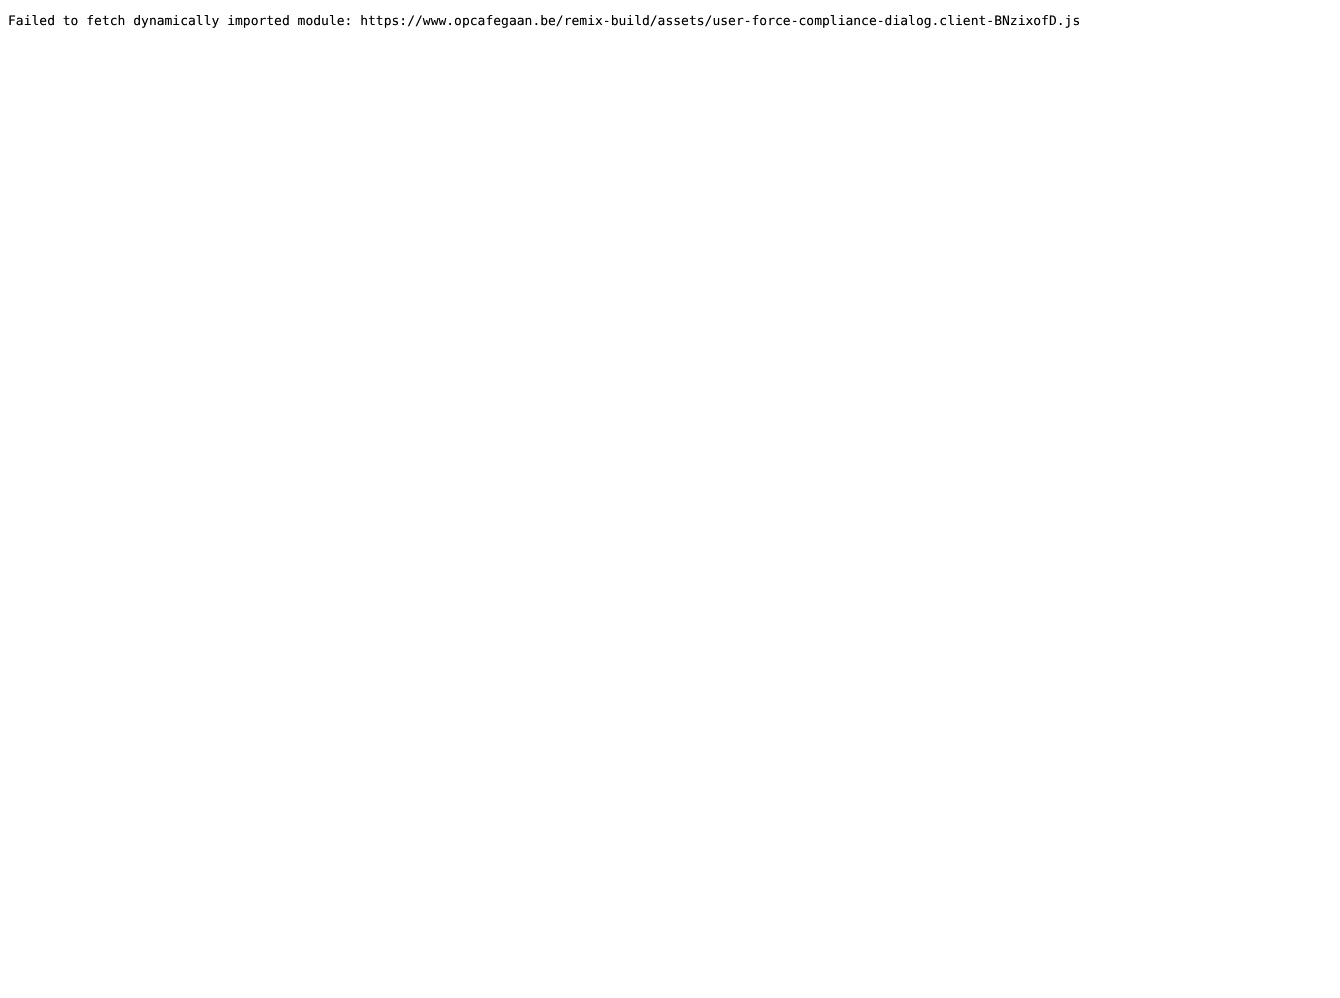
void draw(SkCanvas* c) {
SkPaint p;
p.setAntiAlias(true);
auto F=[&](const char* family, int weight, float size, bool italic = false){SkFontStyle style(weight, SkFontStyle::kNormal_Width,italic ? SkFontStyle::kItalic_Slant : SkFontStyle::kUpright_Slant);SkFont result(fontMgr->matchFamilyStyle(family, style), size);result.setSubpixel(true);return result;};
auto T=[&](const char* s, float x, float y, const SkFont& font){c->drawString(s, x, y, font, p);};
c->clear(0xffffffff);
auto f1 = F("DejaVu Sans Mono",400,13);
p.setColor(0xff000000);
T("Failed to fetch dynamically imported module: https://www.opcafegaan.be/remix-build/assets/user-force-compliance-dialog.client-BNzixofD.js",8,25,f1);
}
